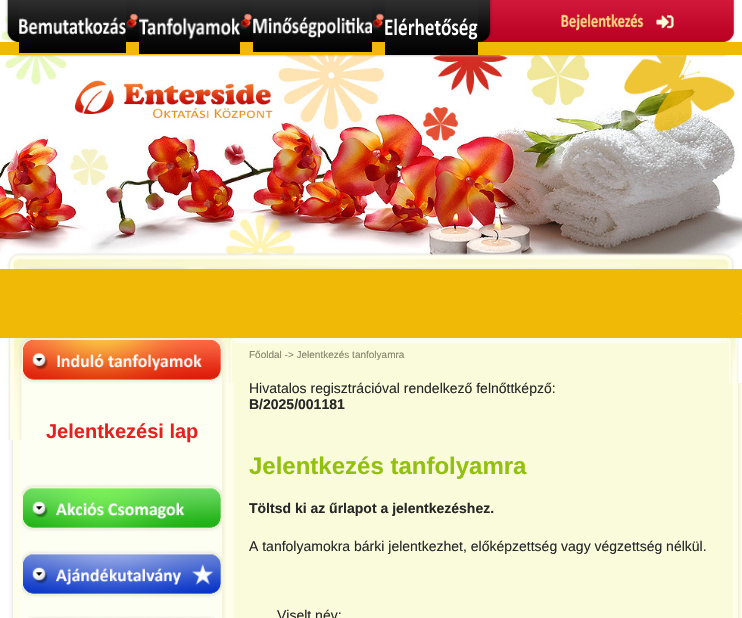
void draw(SkCanvas* c) {
SkPaint p;
p.setAntiAlias(true);
auto F=[&](const char* family, int weight, float size, bool italic = false){SkFontStyle style(weight, SkFontStyle::kNormal_Width,italic ? SkFontStyle::kItalic_Slant : SkFontStyle::kUpright_Slant);SkFont result(fontMgr->matchFamilyStyle(family, style), size);result.setSubpixel(true);return result;};
auto T=[&](const char* s, float x, float y, const SkFont& font){c->drawString(s, x, y, font, p);};
auto R=[&](float x, float y, float w, float h){c->drawRect(SkRect::MakeXYWH(x, y, w, h), p);};
auto I=[&](const char* path, float x, float y, float w, float h){auto image = SkImages::DeferredFromEncodedData(SkData::MakeFromFileName(path));c->drawImageRect(image, SkRect::MakeXYWH(x, y, w, h), SkSamplingOptions());};
c->clear(0xfff0b905);
I("1.png",0,0,19,42);
I("2.png",19,0,107,53);
I("3.png",126,0,13,42);
I("4.png",139,0,101,54);
I("5.png",240,0,13,42);
I("6.png",253,0,119,52);
I("5.png",372,0,13,42);
I("7.png",385,0,93,55);
I("8.png",478,0,264,42);
I("9.png",0,55,742,214);
I("10.png",740,313,2,2);
p.setColor(0xfffefff3);
R(22,384,200,234);
I("11.png",0,338,22,280);
I("12.png",1,338,21,102);
I("13.png",22,338,200,46);
auto f1 = F("Liberation Sans",700,20);
p.setColor(0xffe62020);
T("Jelentkezési lap",46,438,f1);
I("14.png",22,484,200,48);
I("15.png",22,550,200,48);
I("16.png",28,616,187,2);
I("17.png",222,382,4,236);
I("18.png",222,338,4,44);
p.setColor(0xfffafbdb);
R(234,343,499,275);
p.setColor(0xfffffeec);
R(226,383,8,235);
I("19.png",226,338,8,45);
R(234,338,493,5);
auto f2 = F("Liberation Sans",400,10);
p.setColor(0xff83826a);
T("Főoldal -> Jelentkezés tanfolyamra",249,358,f2);
auto f3 = F("Liberation Sans",400,14);
p.setColor(0xff272727);
T("Hivatalos regisztrációval rendelkező felnőttképző:",249,393,f3);
auto f4 = F("Liberation Sans",700,14);
T("B/2025/001181",249,409,f4);
auto f5 = F("Liberation Sans",700,24);
p.setColor(0xff91c10e);
T("Jelentkezés tanfolyamra",249,474,f5);
p.setColor(0xff272727);
T("Töltsd ki az űrlapot a jelentkezéshez.",249,513,f4);
T("A tanfolyamokra bárki jelentkezhet, előképzettség vagy végzettség nélkül.",249,551,f3);
T("Viselt név:",277,620,f3);
I("20.png",733,383,9,235);
I("21.png",727,338,15,45);
}
